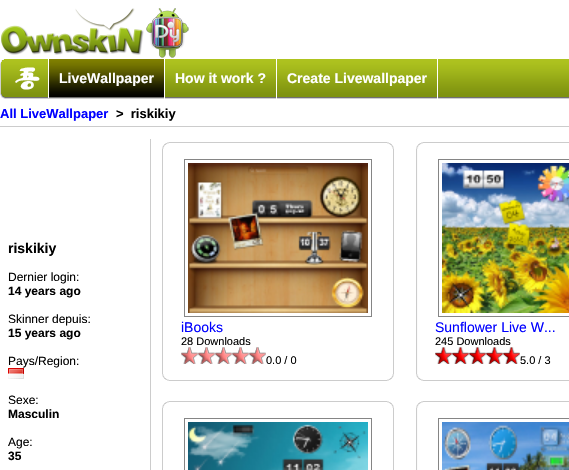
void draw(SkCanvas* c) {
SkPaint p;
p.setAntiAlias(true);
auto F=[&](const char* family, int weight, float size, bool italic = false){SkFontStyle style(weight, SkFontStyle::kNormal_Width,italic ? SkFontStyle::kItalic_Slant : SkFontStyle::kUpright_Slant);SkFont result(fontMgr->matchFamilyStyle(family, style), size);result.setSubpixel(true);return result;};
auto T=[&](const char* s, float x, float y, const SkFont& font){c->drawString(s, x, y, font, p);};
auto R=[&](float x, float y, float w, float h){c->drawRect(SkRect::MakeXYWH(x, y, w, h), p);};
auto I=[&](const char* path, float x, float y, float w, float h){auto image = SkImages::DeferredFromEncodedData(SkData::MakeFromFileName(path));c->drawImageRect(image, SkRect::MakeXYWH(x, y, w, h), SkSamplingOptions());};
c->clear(0xffffffff);
I("1.png",1,8,188,50);
I("2.png",0,59,7,40);
I("3.png",7,59,562,40);
p.setColor(0xffffffff);
R(48,59,1,39);
I("4.png",15,67,25,23);
R(164,59,1,40);
I("5.png",49,59,115,38);
auto f1 = F("Liberation Sans",700,14);
T("LiveWallpaper",59,83,f1);
R(276,59,1,40);
T("How it work ?",175,83,f1);
R(437,59,1,40);
T("Create Livewallpaper",287,83,f1);
p.setColor(0xffcccccc);
R(0,126,569,1);
auto f2 = F("Liberation Sans",700,13);
p.setColor(0xff0000ff);
T("All LiveWallpaper",0,118,f2);
p.setColor(0xff000000);
T(">  riskikiy",116,118,f2);
p.setColor(0xffcccccc);
R(150,139,1,331);
p.setColor(0xff000000);
T("riskikiy",8,253,f1);
auto f3 = F("Liberation Sans",400,12);
T("Dernier login:",8,281,f3);
auto f4 = F("Liberation Sans",700,12);
T("14 years ago",8,295,f4);
T("Skinner depuis:",8,323,f3);
T("15 years ago",8,337,f4);
T("Pays/Region:",8,365,f3);
I("6.png",8,368,16,11);
T("Sexe:",8,404,f3);
T("Masculin",8,418,f4);
T("Age:",8,446,f3);
T("35",8,460,f4);
I("7.png",162,142,231,232);
I("8.png",387,142,7,15);
p.setColor(0xffcccccc);
R(393,157,1,209);
p.setStroke(true);
p.setStrokeWidth(1);
p.setColor(0xff858585);
c->drawRect(SkRect::MakeXYWH(184.5,159.5,187,157),p);
I("9.png",188,163,180,150);
auto f5 = F("Liberation Sans",400,14);
p.setStroke(false);
p.setColor(0xff0000ff);
T("iBooks",181,332,f5);
auto f6 = F("Liberation Sans",400,11);
p.setColor(0xff000000);
T("28 Downloads",181,345,f6);
I("10.png",181,347,17,17);
I("10.png",198,347,17,17);
I("10.png",215,347,17,17);
I("10.png",232,347,17,17);
I("10.png",249,347,17,17);
T("0.0 / 0",266,364,f6);
I("11.png",162,374,225,7);
I("12.png",387,366,7,15);
I("13.png",416,142,153,232);
p.setStroke(true);
p.setColor(0xff858585);
c->drawRect(SkRect::MakeXYWH(438.5,159.5,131,157),p);
I("14.png",442,163,127,150);
p.setStroke(false);
p.setColor(0xff0000ff);
T("Sunflower Live W...",435,332,f5);
p.setColor(0xff000000);
T("245 Downloads",435,345,f6);
I("15.png",435,347,17,17);
I("15.png",452,347,17,17);
I("15.png",469,347,17,17);
I("15.png",486,347,17,17);
I("15.png",503,347,17,17);
T("5.0 / 3",520,364,f6);
I("16.png",416,374,153,7);
I("17.png",162,401,231,69);
I("8.png",387,401,7,15);
p.setColor(0xffcccccc);
R(393,416,1,54);
p.setStroke(true);
p.setColor(0xff858585);
c->drawRect(SkRect::MakeXYWH(184.5,418.5,187,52),p);
I("18.png",188,422,180,48);
I("19.png",416,401,153,69);
c->drawRect(SkRect::MakeXYWH(438.5,418.5,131,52),p);
I("20.png",442,422,127,48);
}
